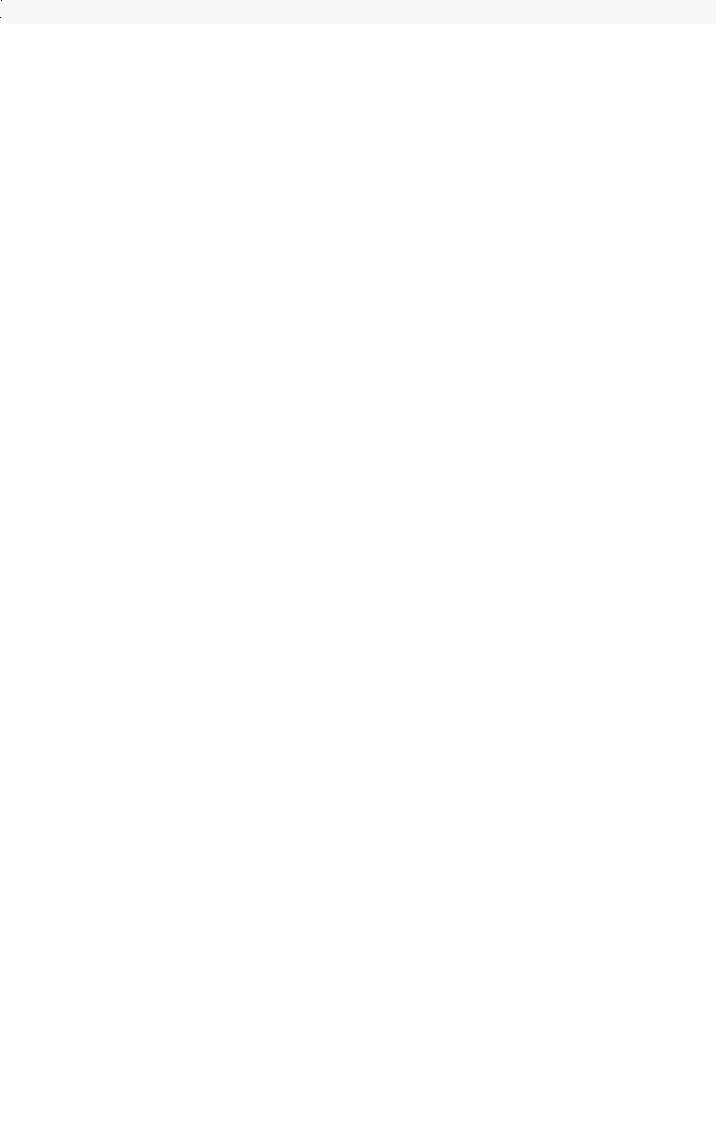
void draw(SkCanvas* c) {
SkPaint p;
p.setAntiAlias(true);
auto R=[&](float x, float y, float w, float h){c->drawRect(SkRect::MakeXYWH(x, y, w, h), p);};
c->clear(0xffffffff);
p.setColor(0xfff7f7f7);
R(0,0,716,24);
p.setColor(0xff000000);
R(1,0,1,1);
R(0,17,1,1);
}
